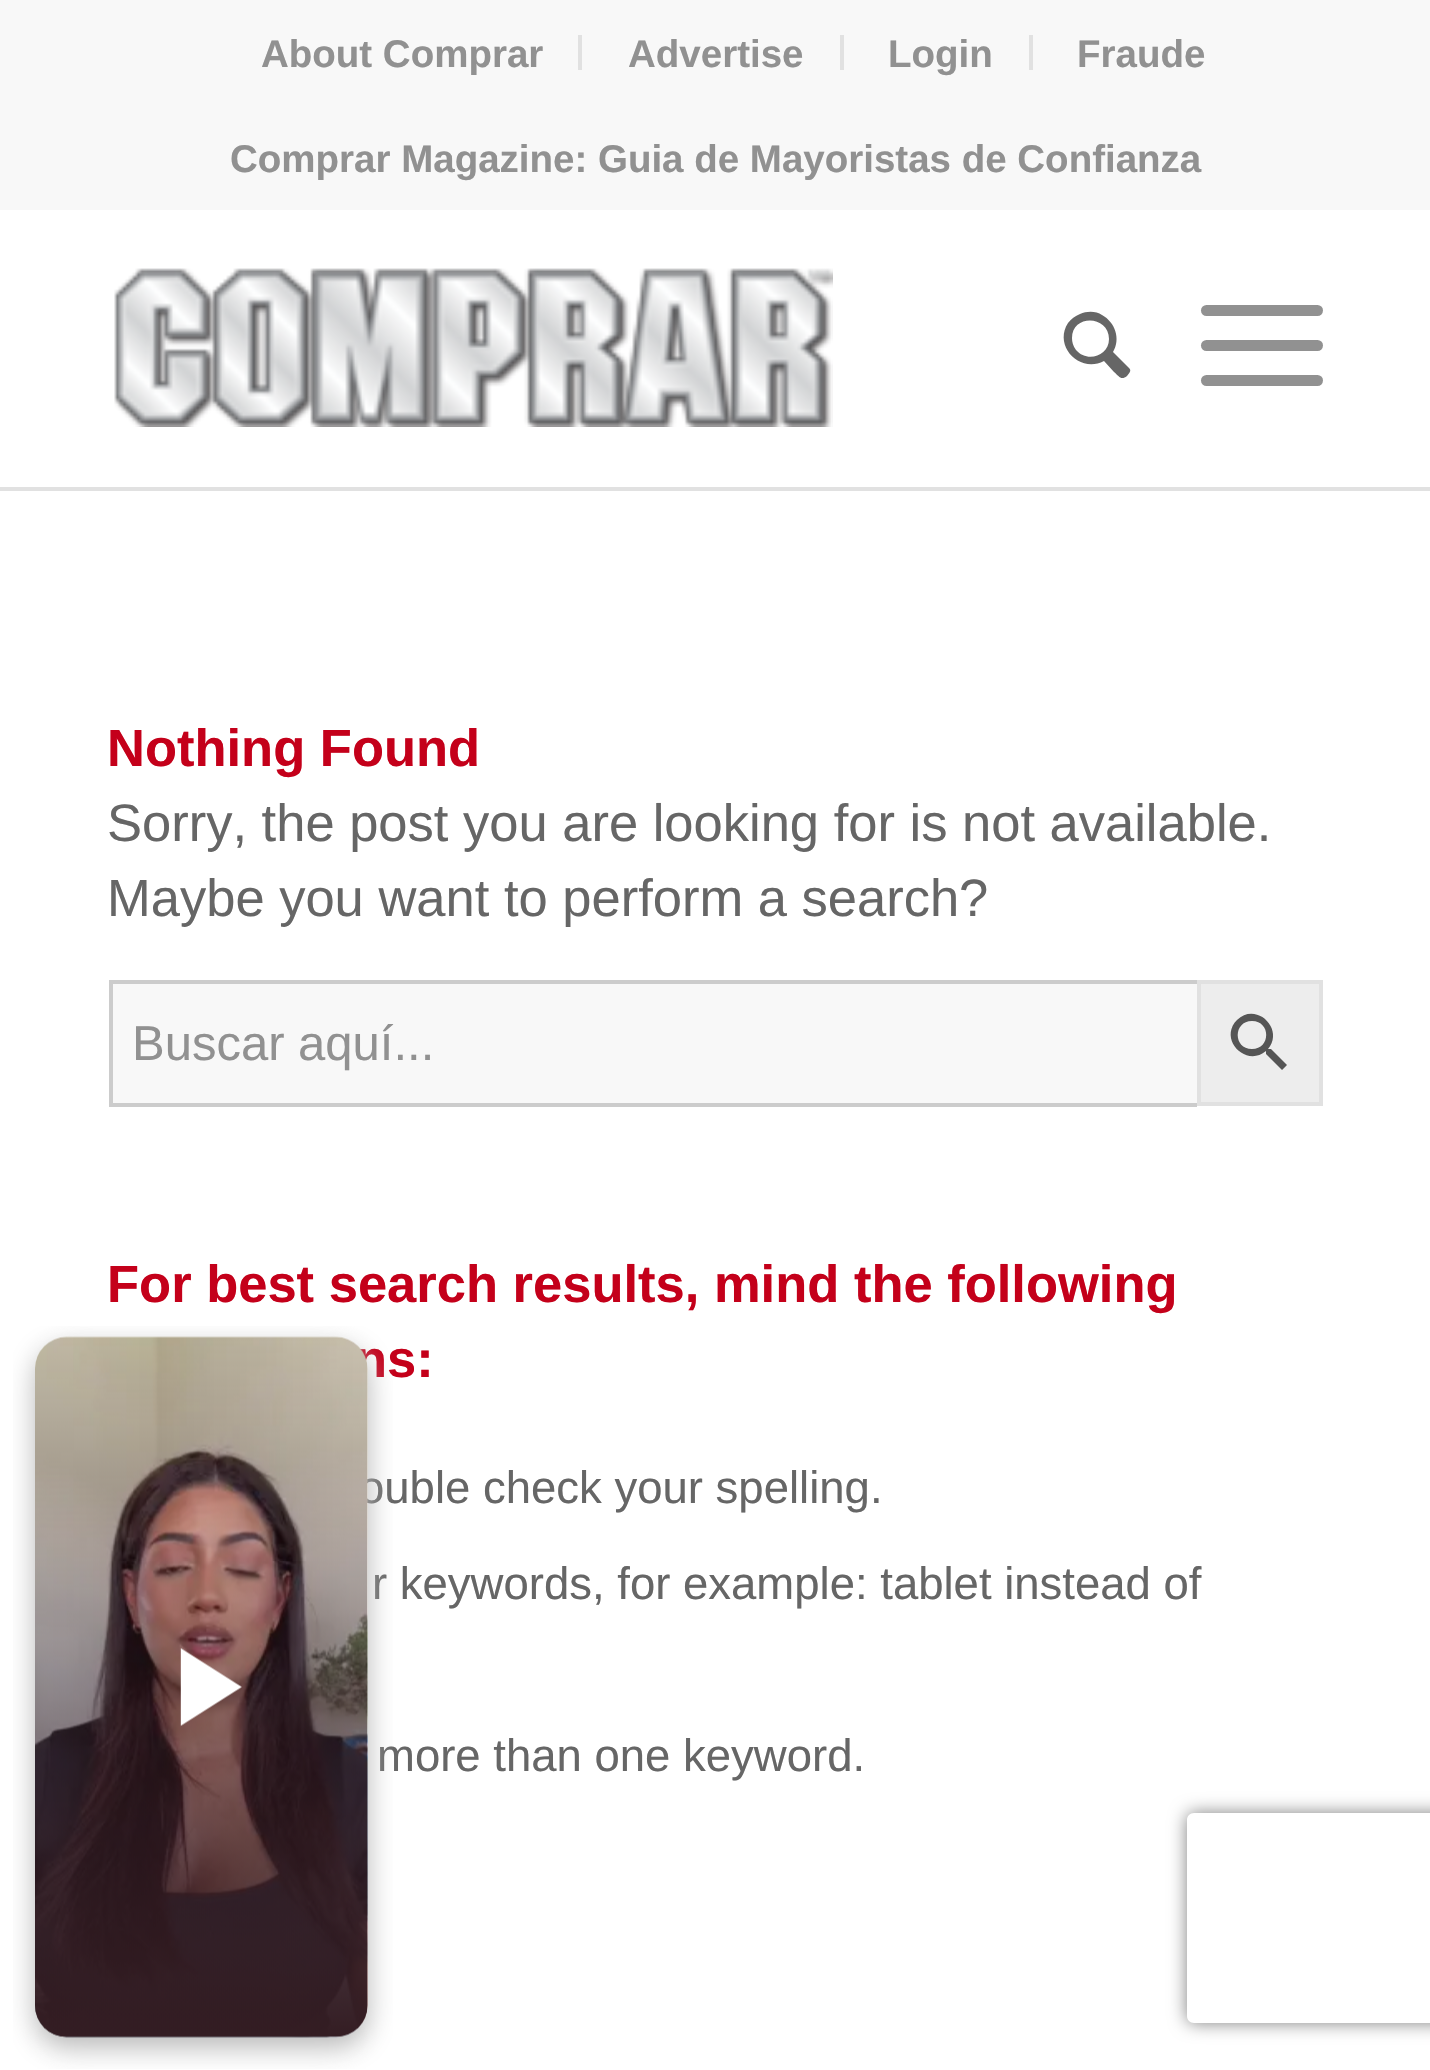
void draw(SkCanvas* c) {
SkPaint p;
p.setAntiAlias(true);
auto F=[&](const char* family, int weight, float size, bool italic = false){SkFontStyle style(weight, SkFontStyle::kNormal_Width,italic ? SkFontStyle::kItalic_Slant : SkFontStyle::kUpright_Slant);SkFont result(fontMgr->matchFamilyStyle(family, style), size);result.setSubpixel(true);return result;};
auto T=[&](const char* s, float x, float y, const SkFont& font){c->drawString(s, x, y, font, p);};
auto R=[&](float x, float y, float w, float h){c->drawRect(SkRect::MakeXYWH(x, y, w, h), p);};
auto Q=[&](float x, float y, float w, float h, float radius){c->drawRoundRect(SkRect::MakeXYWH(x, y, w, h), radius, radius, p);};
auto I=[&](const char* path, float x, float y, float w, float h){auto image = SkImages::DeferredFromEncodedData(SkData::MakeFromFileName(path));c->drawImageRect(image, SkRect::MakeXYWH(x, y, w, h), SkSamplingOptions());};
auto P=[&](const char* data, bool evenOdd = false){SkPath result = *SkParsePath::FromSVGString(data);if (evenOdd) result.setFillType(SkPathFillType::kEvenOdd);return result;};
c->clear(0xffffffff);
p.setColor(0xfff8f8f8);
R(0,0,1430,210);
p.setColor(0xffe1e1e1);
R(578,35,4,35);
auto f1 = F("Liberation Sans",700,38.5);
p.setColor(0xff919191);
T("About Comprar",261,67,f1);
p.setColor(0xffe1e1e1);
R(840,35,4,35);
p.setColor(0xff919191);
T("Advertise",628,67,f1);
p.setColor(0xffe1e1e1);
R(1029,35,4,35);
p.setColor(0xff919191);
T("Login",888,67,f1);
T("Fraude",1077,67,f1);
T("Comprar Magazine: Guia de Mayoristas de Confianza",230,172,f1);
I("1.png",114,268,719,159);
p.setColor(0xff666666);
c->drawPath(P("M1129 368c3 3 0 5-2 8c-6 5-8 0-13-4l-10-11c-24 13-51-15-36-38c3-4 7-7 12-9c7-3 16-3 22 1c13 7 19 24 11 37zm-57-30c0 4 1 8 4 12c11 13 33 6 33-11c0-24-37-25-37-1z"),p);
p.setColor(0xff919191);
Q(1201,340,122,11,5.5);
Q(1201,305,122,11,5.5);
Q(1201,375,122,11,5.5);
p.setColor(0xffe1e1e1);
R(0,487,1430,4);
auto f2 = F("Liberation Sans",700,52.5);
p.setColor(0xffc4001a);
T("Nothing Found",107,766,f2);
auto f3 = F("Liberation Sans",400,52.5);
p.setColor(0xff666666);
T("Sorry, the post you are looking for is not available.",107,841,f3);
T("Maybe you want to perform a search?",107,916,f3);
p.setColor(0xfff8f8f8);
R(113,984,1084,119);
p.setColor(0xffcccccc);
R(109,980,1088,4);
R(109,1103,1088,4);
R(109,980,4,126);
auto f4 = F("Liberation Sans",400,49);
p.setColor(0xff919191);
T("Buscar aquí...",132,1060,f4);
p.setColor(0xffededed);
c->drawRect(SkRect::MakeXYWH(1199,982,122,122),p);
p.setStroke(true);
p.setStrokeWidth(4);
p.setColor(0xffe1e1e1);
c->drawRect(SkRect::MakeXYWH(1199,982,122,122),p);
p.setStroke(false);
p.setColor(0xff555555);
c->drawPath(P("M1271 1049h-2h-1c17-20-12-48-31-29c-19 19 9 48 29 31v1v2l16 16l5-5zm-19 0c-19 0-19-28 0-28c19 0 19 28 0 28z"),p);
p.setColor(0xffc4001a);
T("For best search results, mind the following",107,1302,f2);
T("ns:",355,1377,f2);
auto f5 = F("Liberation Sans",400,45.5);
p.setColor(0xff666666);
T("ouble check your spelling.",359,1503,f5);
T("r keywords, for example: tablet instead of",372,1599,f5);
T("more than one keyword.",377,1771,f5);
I("2.png",13,1326,380,743);
c->save();
c->clipPath(P("M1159 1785h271v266h-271zm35 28h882c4 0 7 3 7 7v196c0 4-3 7-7 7h-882c-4 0-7-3-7-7v-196c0-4 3-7 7-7z",true),true);
p.setColor(0xff808080);
p.setMaskFilter(SkMaskFilter::MakeBlur(kNormal_SkBlurStyle, 9));
c->drawRoundRect(SkRect::MakeXYWH(1187,1813,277,210),7,7,p);
p.setMaskFilter(nullptr);
c->restore();
}
